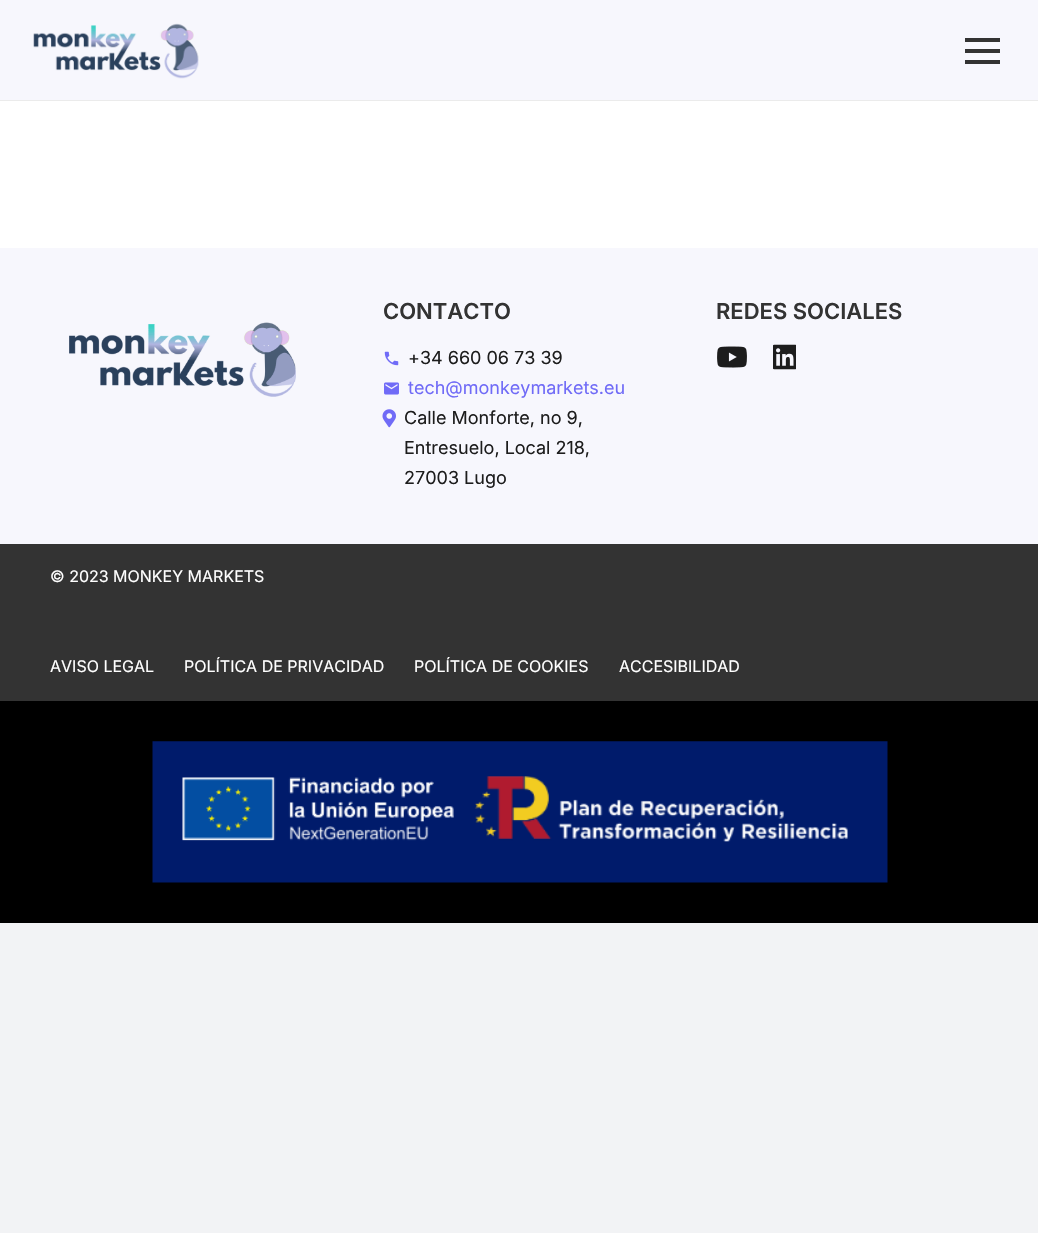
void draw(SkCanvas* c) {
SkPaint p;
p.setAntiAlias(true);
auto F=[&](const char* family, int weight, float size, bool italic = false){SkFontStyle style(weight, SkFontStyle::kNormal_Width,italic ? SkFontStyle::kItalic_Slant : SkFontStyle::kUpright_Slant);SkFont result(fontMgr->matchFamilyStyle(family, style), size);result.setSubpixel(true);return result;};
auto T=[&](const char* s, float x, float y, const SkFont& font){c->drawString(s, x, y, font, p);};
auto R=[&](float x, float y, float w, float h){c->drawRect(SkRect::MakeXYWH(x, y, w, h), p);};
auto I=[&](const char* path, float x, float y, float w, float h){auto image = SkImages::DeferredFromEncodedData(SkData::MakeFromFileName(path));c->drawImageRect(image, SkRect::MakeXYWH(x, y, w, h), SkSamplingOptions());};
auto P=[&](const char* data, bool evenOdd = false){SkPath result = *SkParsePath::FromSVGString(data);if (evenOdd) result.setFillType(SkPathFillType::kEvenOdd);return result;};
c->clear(0xfff2f3f5);
p.setColor(0xffffffff);
R(0,101,1038,147);
p.setColor(0xffebebeb);
c->drawPath(P("M0 100v1h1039v-100v99z"),p);
p.setColor(0xfff7f7fd);
R(0,0,1038,100);
I("1.png",33,23,166,56);
p.setColor(0xff333333);
R(965,49,35,4);
R(965,38,35,4);
R(965,60,35,4);
p.setColor(0xfff7f7fd);
R(0,248,1038,296);
auto f1 = F("Inter",600,22);
p.setColor(0xff333333);
T("CONTACTO",383,319,f1);
I("2.png",384,351,15,15);
auto f2 = F("Inter",400,18);
p.setColor(0xff1d1d1d);
T("+34 660 06 73 39",408,364,f2);
I("3.png",384,382,15,13);
p.setColor(0xff706bf7);
T("tech@monkeymarkets.eu",408,394,f2);
I("4.png",382,409,14,19);
p.setColor(0xff1d1d1d);
T("Calle Monforte, no 9,",404,424,f2);
T("Entresuelo, Local 218,",404,454,f2);
T("27003 Lugo",404,484,f2);
p.setColor(0xff333333);
T("REDES SOCIALES",716,319,f1);
I("5.png",717,346,30,22);
I("6.png",773,344,23,26);
I("7.png",69,322,227,75);
R(0,544,1038,157);
auto f3 = F("Inter",400,16);
p.setColor(0xffffffff);
T("© 2023 MONKEY MARKETS",50,582,f3);
T("AVISO LEGAL",50,672,f3);
T("POLÍTICA DE PRIVACIDAD",184,672,f3);
T("POLÍTICA DE COOKIES",414,672,f3);
T("ACCESIBILIDAD",619,672,f3);
p.setColor(0xff000000);
R(0,701,1038,222);
I("8.png",152,741,736,142);
}
